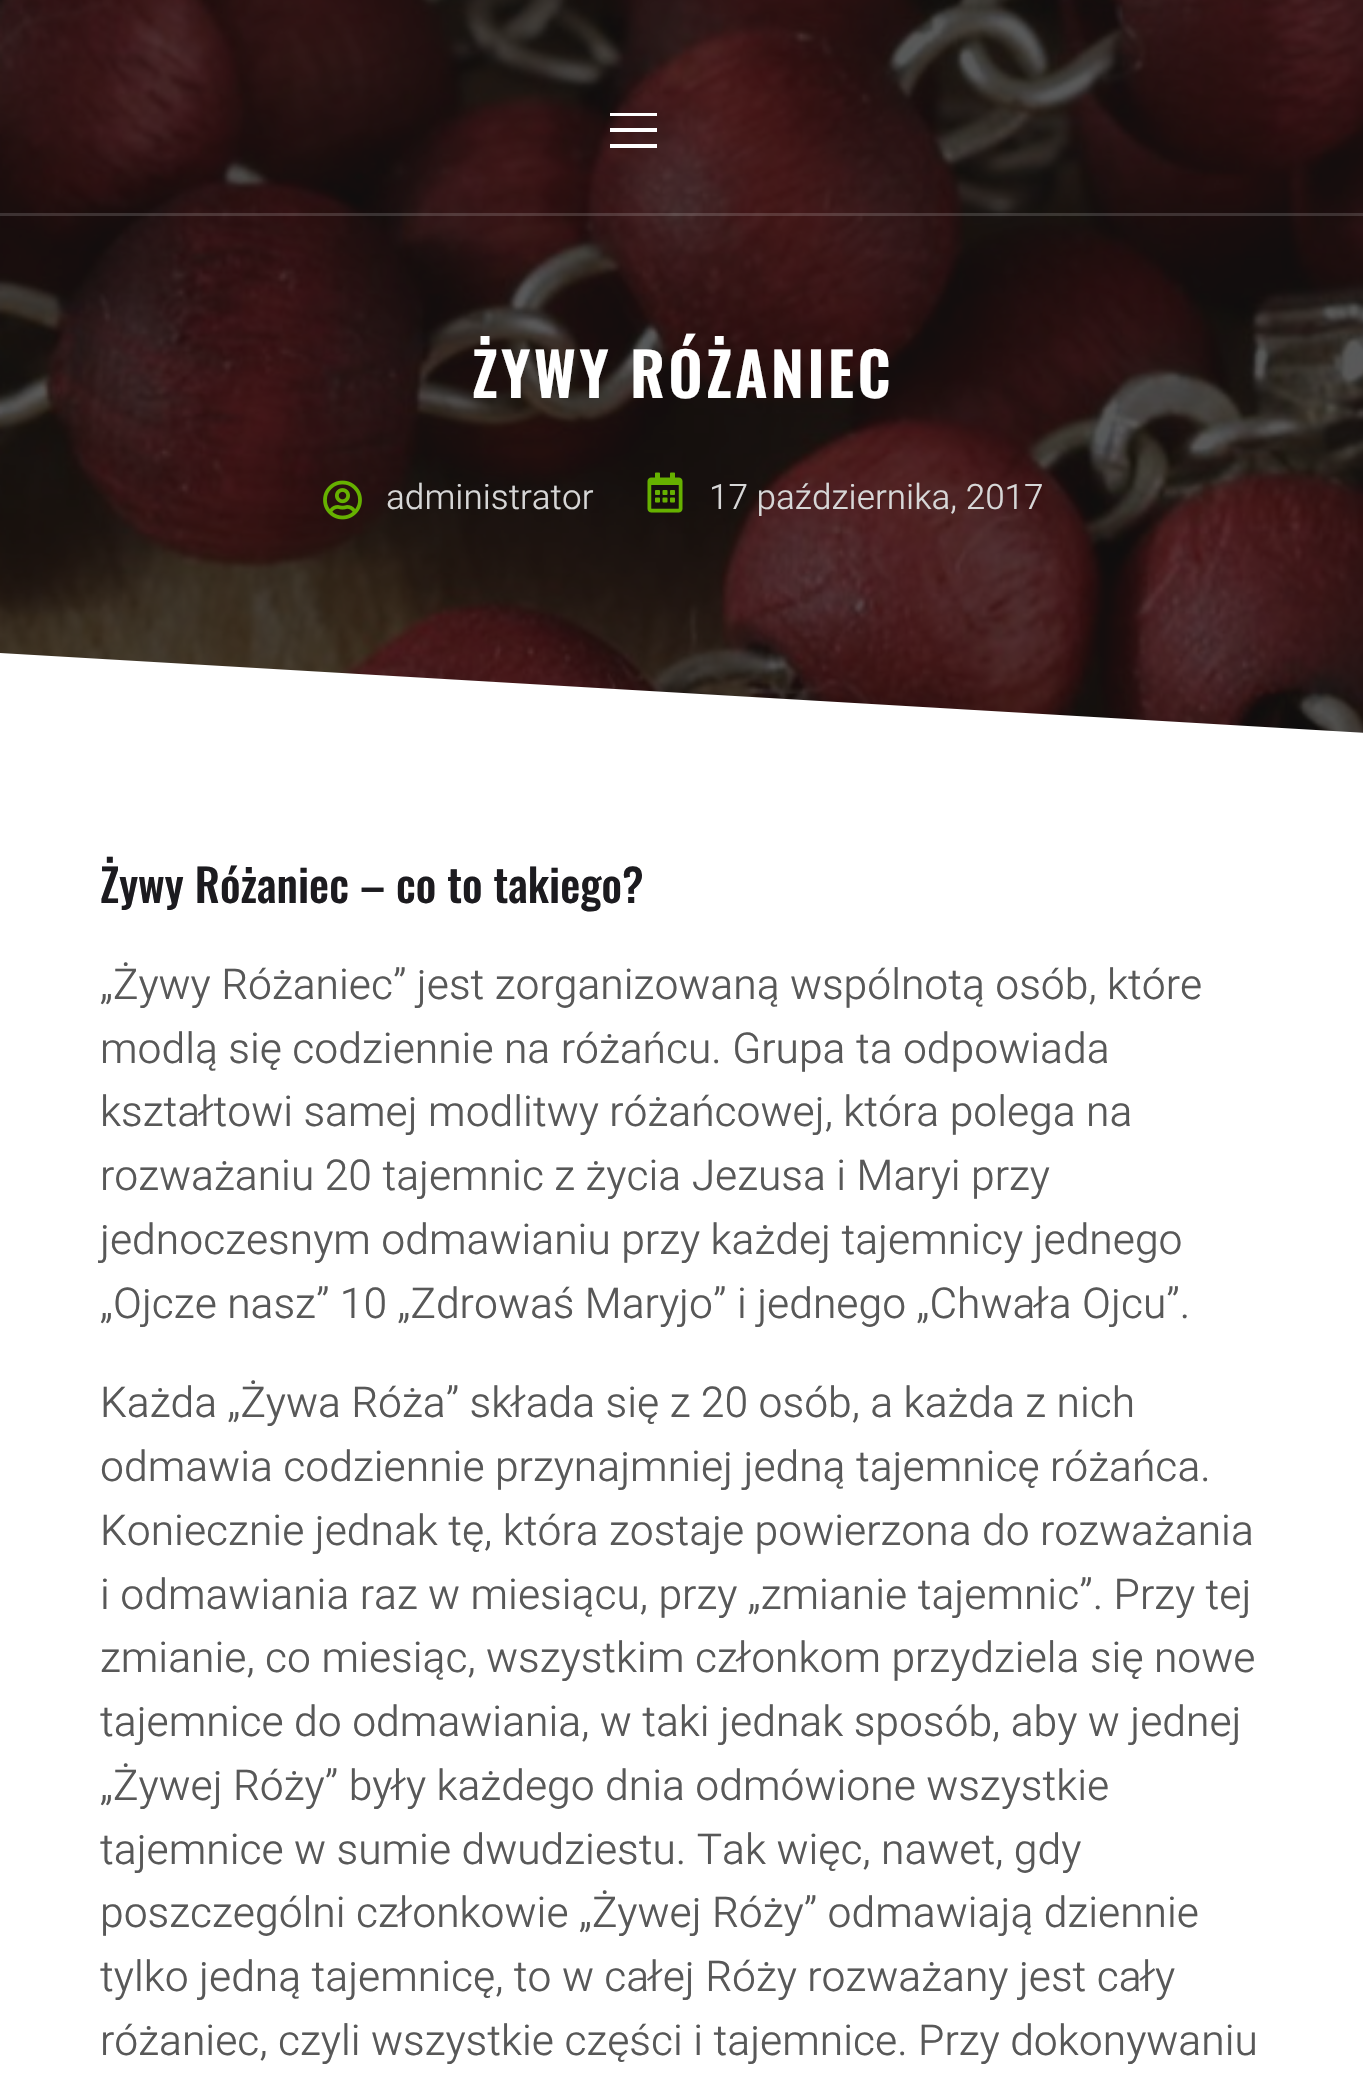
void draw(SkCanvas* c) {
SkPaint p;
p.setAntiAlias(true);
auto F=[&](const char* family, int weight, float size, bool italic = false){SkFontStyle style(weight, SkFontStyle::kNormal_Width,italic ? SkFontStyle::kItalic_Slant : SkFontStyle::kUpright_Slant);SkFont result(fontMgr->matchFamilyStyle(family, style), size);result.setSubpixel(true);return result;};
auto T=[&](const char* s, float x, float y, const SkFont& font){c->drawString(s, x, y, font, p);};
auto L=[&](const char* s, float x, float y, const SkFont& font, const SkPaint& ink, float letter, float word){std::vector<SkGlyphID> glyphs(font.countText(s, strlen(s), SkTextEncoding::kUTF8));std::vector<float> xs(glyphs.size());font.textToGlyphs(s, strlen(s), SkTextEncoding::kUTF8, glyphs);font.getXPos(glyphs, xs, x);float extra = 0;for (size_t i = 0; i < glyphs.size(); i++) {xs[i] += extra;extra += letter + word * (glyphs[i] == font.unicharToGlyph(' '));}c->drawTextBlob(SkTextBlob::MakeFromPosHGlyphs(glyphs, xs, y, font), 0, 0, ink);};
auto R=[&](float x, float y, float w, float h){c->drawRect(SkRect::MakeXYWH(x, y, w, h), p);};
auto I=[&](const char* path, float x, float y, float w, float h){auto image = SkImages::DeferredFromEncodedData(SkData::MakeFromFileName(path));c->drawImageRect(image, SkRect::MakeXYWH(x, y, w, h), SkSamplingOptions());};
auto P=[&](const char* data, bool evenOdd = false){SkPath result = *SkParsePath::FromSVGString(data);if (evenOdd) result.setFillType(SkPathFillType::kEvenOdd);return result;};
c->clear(0xffffffff);
I("1.png",0,0,1363,733);
p.setColor(0x26ffffff);
R(0,213,1363,3);
p.setColor(0xffffffff);
c->drawPath(P("M610 113v3h47v-3zm0 15v4h47v-4zm0 16v4h47v-4z"),p);
auto f1 = F("Oswald",600,60);
L("ŻYWY RÓŻANIEC",472,398,f1,p,3.25,0);
I("2.png",323,480,39,40);
auto f2 = F("Heebo",300,35);
p.setColor(0xffd7d7d7);
T("administrator",386,509,f2);
I("3.png",647,472,36,41);
T("17 października, 2017",709,509,f2);
p.setColor(0xffffffff);
c->drawPath(P("M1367 733v5h-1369v-85z"),p);
auto f3 = F("Oswald",500,45);
p.setColor(0xff1c1b1f);
T("Żywy Różaniec – co to takiego?",100,903,f3);
auto f4 = F("Heebo",300,42.5);
p.setColor(0xff585858);
T("„Żywy Różaniec” jest zorganizowaną wspólnotą osób, które",100,999,f4);
T("modlą się codziennie na różańcu. Grupa ta odpowiada",100,1063,f4);
T("kształtowi samej modlitwy różańcowej, która polega na",100,1126,f4);
T("rozważaniu 20 tajemnic z życia Jezusa i Maryi przy",100,1190,f4);
T("jednoczesnym odmawianiu przy każdej tajemnicy jednego",100,1254,f4);
T("„Ojcze nasz” 10 „Zdrowaś Maryjo” i jednego „Chwała Ojcu”.",100,1318,f4);
T("Każda „Żywa Róża” składa się z 20 osób, a każda z nich",100,1417,f4);
T("odmawia codziennie przynajmniej jedną tajemnicę różańca.",100,1481,f4);
T("Koniecznie jednak tę, która zostaje powierzona do rozważania",100,1545,f4);
T("i odmawiania raz w miesiącu, przy „zmianie tajemnic”. Przy tej",100,1609,f4);
T("zmianie, co miesiąc, wszystkim członkom przydziela się nowe",100,1672,f4);
T("tajemnice do odmawiania, w taki jednak sposób, aby w jednej",100,1736,f4);
T("„Żywej Róży” były każdego dnia odmówione wszystkie",100,1800,f4);
T("tajemnice w sumie dwudziestu. Tak więc, nawet, gdy",100,1864,f4);
T("poszczególni członkowie „Żywej Róży” odmawiają dziennie",100,1927,f4);
T("tylko jedną tajemnicę, to w całej Róży rozważany jest cały",100,1991,f4);
T("różaniec, czyli wszystkie części i tajemnice. Przy dokonywaniu",100,2055,f4);
}
